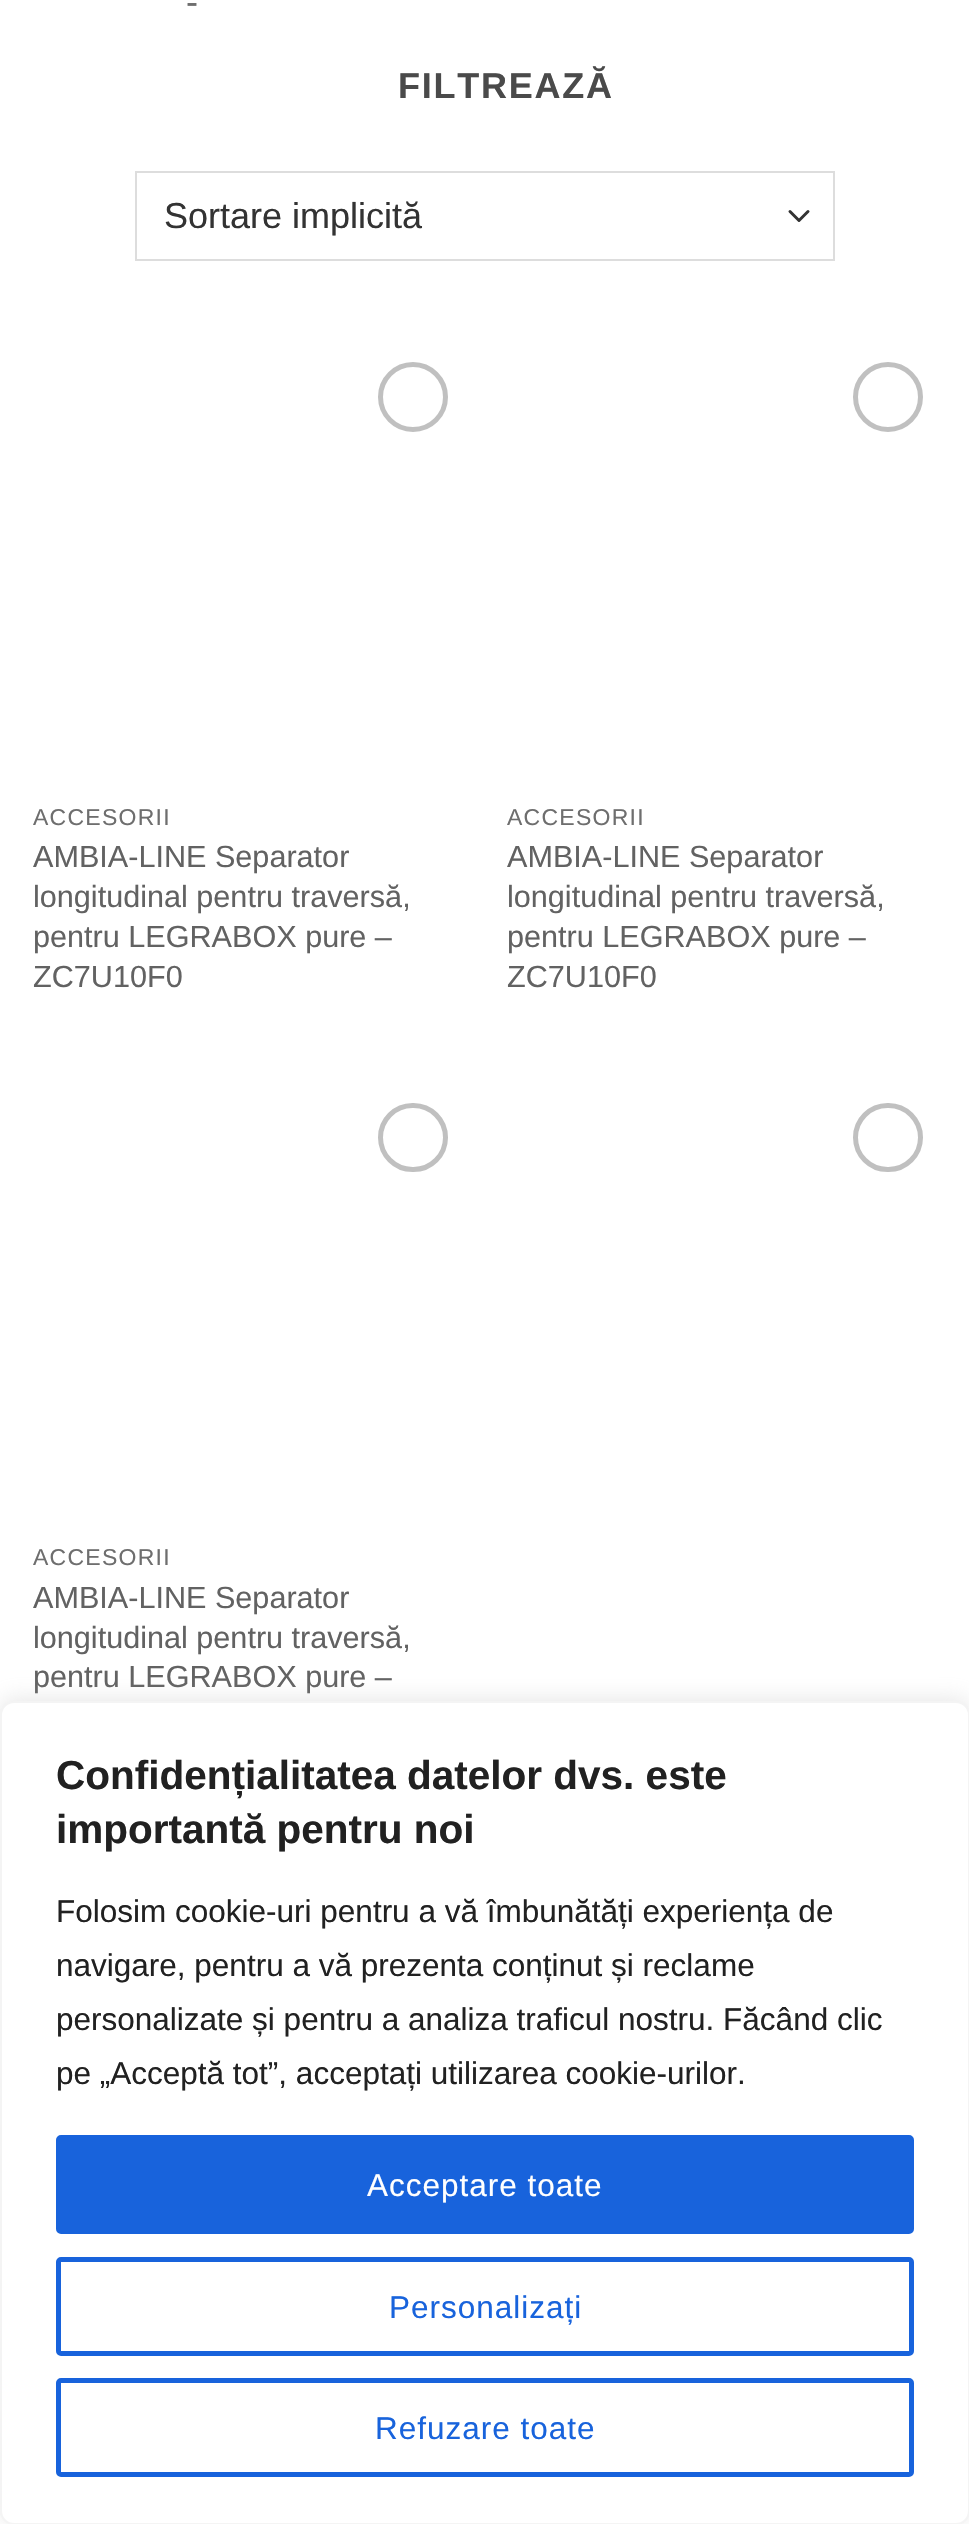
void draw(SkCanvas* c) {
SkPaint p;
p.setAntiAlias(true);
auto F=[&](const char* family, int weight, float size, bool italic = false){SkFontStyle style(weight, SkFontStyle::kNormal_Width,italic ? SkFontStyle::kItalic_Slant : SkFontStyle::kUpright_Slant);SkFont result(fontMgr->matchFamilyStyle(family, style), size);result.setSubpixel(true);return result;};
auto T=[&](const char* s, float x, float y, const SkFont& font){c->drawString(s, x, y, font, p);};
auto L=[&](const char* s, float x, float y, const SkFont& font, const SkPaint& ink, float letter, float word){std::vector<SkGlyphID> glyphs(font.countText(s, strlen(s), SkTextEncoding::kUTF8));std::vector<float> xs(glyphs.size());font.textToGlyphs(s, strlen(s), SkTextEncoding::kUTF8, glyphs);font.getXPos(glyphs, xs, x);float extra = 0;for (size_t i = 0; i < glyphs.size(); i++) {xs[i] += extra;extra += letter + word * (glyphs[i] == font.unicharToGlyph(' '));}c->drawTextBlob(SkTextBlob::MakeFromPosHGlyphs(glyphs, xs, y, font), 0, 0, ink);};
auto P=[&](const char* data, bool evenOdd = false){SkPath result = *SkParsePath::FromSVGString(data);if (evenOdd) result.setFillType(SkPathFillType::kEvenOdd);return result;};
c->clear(0xffffffff);
auto f1 = F("Liberation Sans",400,36);
p.setColor(0xff6e6e6e);
T("-",186,14,f1);
auto f2 = F("Liberation Sans",700,36);
p.setColor(0xff4a4a4a);
L("FILTREAZĂ",398,98,f2,p,1.75,0);
p.setStroke(true);
p.setStrokeWidth(3);
p.setStrokeCap(SkPaint::kRound_Cap);
p.setStrokeJoin(SkPaint::kRound_Join);
p.setColor(0xff333333);
c->drawPath(P("M790 211.5l9 9l9-9"),p);
p.setStrokeWidth(2);
p.setStrokeCap(SkPaint::kButt_Cap);
p.setStrokeJoin(SkPaint::kMiter_Join);
p.setColor(0xffdddddd);
c->drawRect(SkRect::MakeXYWH(136,172,698,88),p);
p.setStroke(false);
p.setColor(0xff333333);
T("Sortare implicită",164,228,f1);
p.setStroke(true);
p.setStrokeWidth(5);
p.setColor(0xffc0c0c0);
c->drawCircle(413,397,32.5,p);
auto f3 = F("Liberation Sans",400,23);
p.setStroke(false);
p.setColor(0xff6e6e6e);
L("ACCESORII",33,825,f3,p,1.25,0);
auto f4 = F("Liberation Sans",400,30.6);
p.setColor(0xff626262);
T("AMBIA-LINE Separator",33,867,f4);
T("longitudinal pentru traversă,",33,907,f4);
T("pentru LEGRABOX pure –",33,947,f4);
T("ZC7U10F0",33,987,f4);
p.setStroke(true);
p.setColor(0xffc0c0c0);
c->drawCircle(888,397,32.5,p);
p.setStroke(false);
p.setColor(0xff6e6e6e);
L("ACCESORII",507,825,f3,p,1.25,0);
p.setColor(0xff626262);
T("AMBIA-LINE Separator",507,867,f4);
T("longitudinal pentru traversă,",507,907,f4);
T("pentru LEGRABOX pure –",507,947,f4);
T("ZC7U10F0",507,987,f4);
p.setStroke(true);
p.setColor(0xffc0c0c0);
c->drawRoundRect(SkRect::MakeXYWH(855.5,1105.5,65,64),32,32,p);
c->drawRoundRect(SkRect::MakeXYWH(380.5,1105.5,65,64),32,32,p);
p.setStroke(false);
p.setColor(0xff6e6e6e);
L("ACCESORII",33,1565,f3,p,1.25,0);
p.setColor(0xff626262);
T("AMBIA-LINE Separator",33,1608,f4);
T("longitudinal pentru traversă,",33,1648,f4);
T("pentru LEGRABOX pure –",33,1687,f4);
p.setColor(0x4dacabab);
p.setMaskFilter(SkMaskFilter::MakeBlur(kNormal_SkBlurStyle, 11));
c->drawRoundRect(SkRect::MakeXYWH(0,1699,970,823),14,14,p);
p.setMaskFilter(nullptr);
p.setColor(0xffffffff);
c->drawRoundRect(SkRect::MakeXYWH(1,1702,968,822),13,13,p);
p.setStroke(true);
p.setStrokeWidth(2);
p.setColor(0xfff4f4f4);
c->drawRoundRect(SkRect::MakeXYWH(1,1702,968,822),13,13,p);
auto f5 = F("Liberation Sans",700,40.5);
p.setStroke(false);
p.setColor(0xff212121);
T("Confidențialitatea datelor dvs. este",56,1789,f5);
T("importantă pentru noi",56,1843,f5);
auto f6 = F("Liberation Sans",400,31.5);
T("Folosim cookie-uri pentru a vă îmbunătăți experiența de",56,1922,f6);
T("navigare, pentru a vă prezenta conținut și reclame",56,1976,f6);
T("personalizate și pentru a analiza traficul nostru. Făcând clic",56,2030,f6);
T("pe „Acceptă tot”, acceptați utilizarea cookie-urilor.",56,2084,f6);
p.setColor(0xff1863dc);
c->drawRoundRect(SkRect::MakeXYWH(58.5,2137.5,853,94),2.5,2.5,p);
p.setStroke(true);
p.setStrokeWidth(5);
c->drawRoundRect(SkRect::MakeXYWH(58.5,2137.5,853,94),2.5,2.5,p);
p.setStroke(false);
p.setColor(0xffffffff);
L("Acceptare toate",367,2196,f6,p,1,0);
p.setStroke(true);
p.setColor(0xff1863dc);
c->drawRoundRect(SkRect::MakeXYWH(58.5,2259.5,853,94),2.5,2.5,p);
p.setStroke(false);
L("Personalizați",389,2318,f6,p,1,0);
p.setStroke(true);
c->drawRoundRect(SkRect::MakeXYWH(58.5,2380.5,853,94),2.5,2.5,p);
p.setStroke(false);
L("Refuzare toate",375,2439,f6,p,1,0);
}
